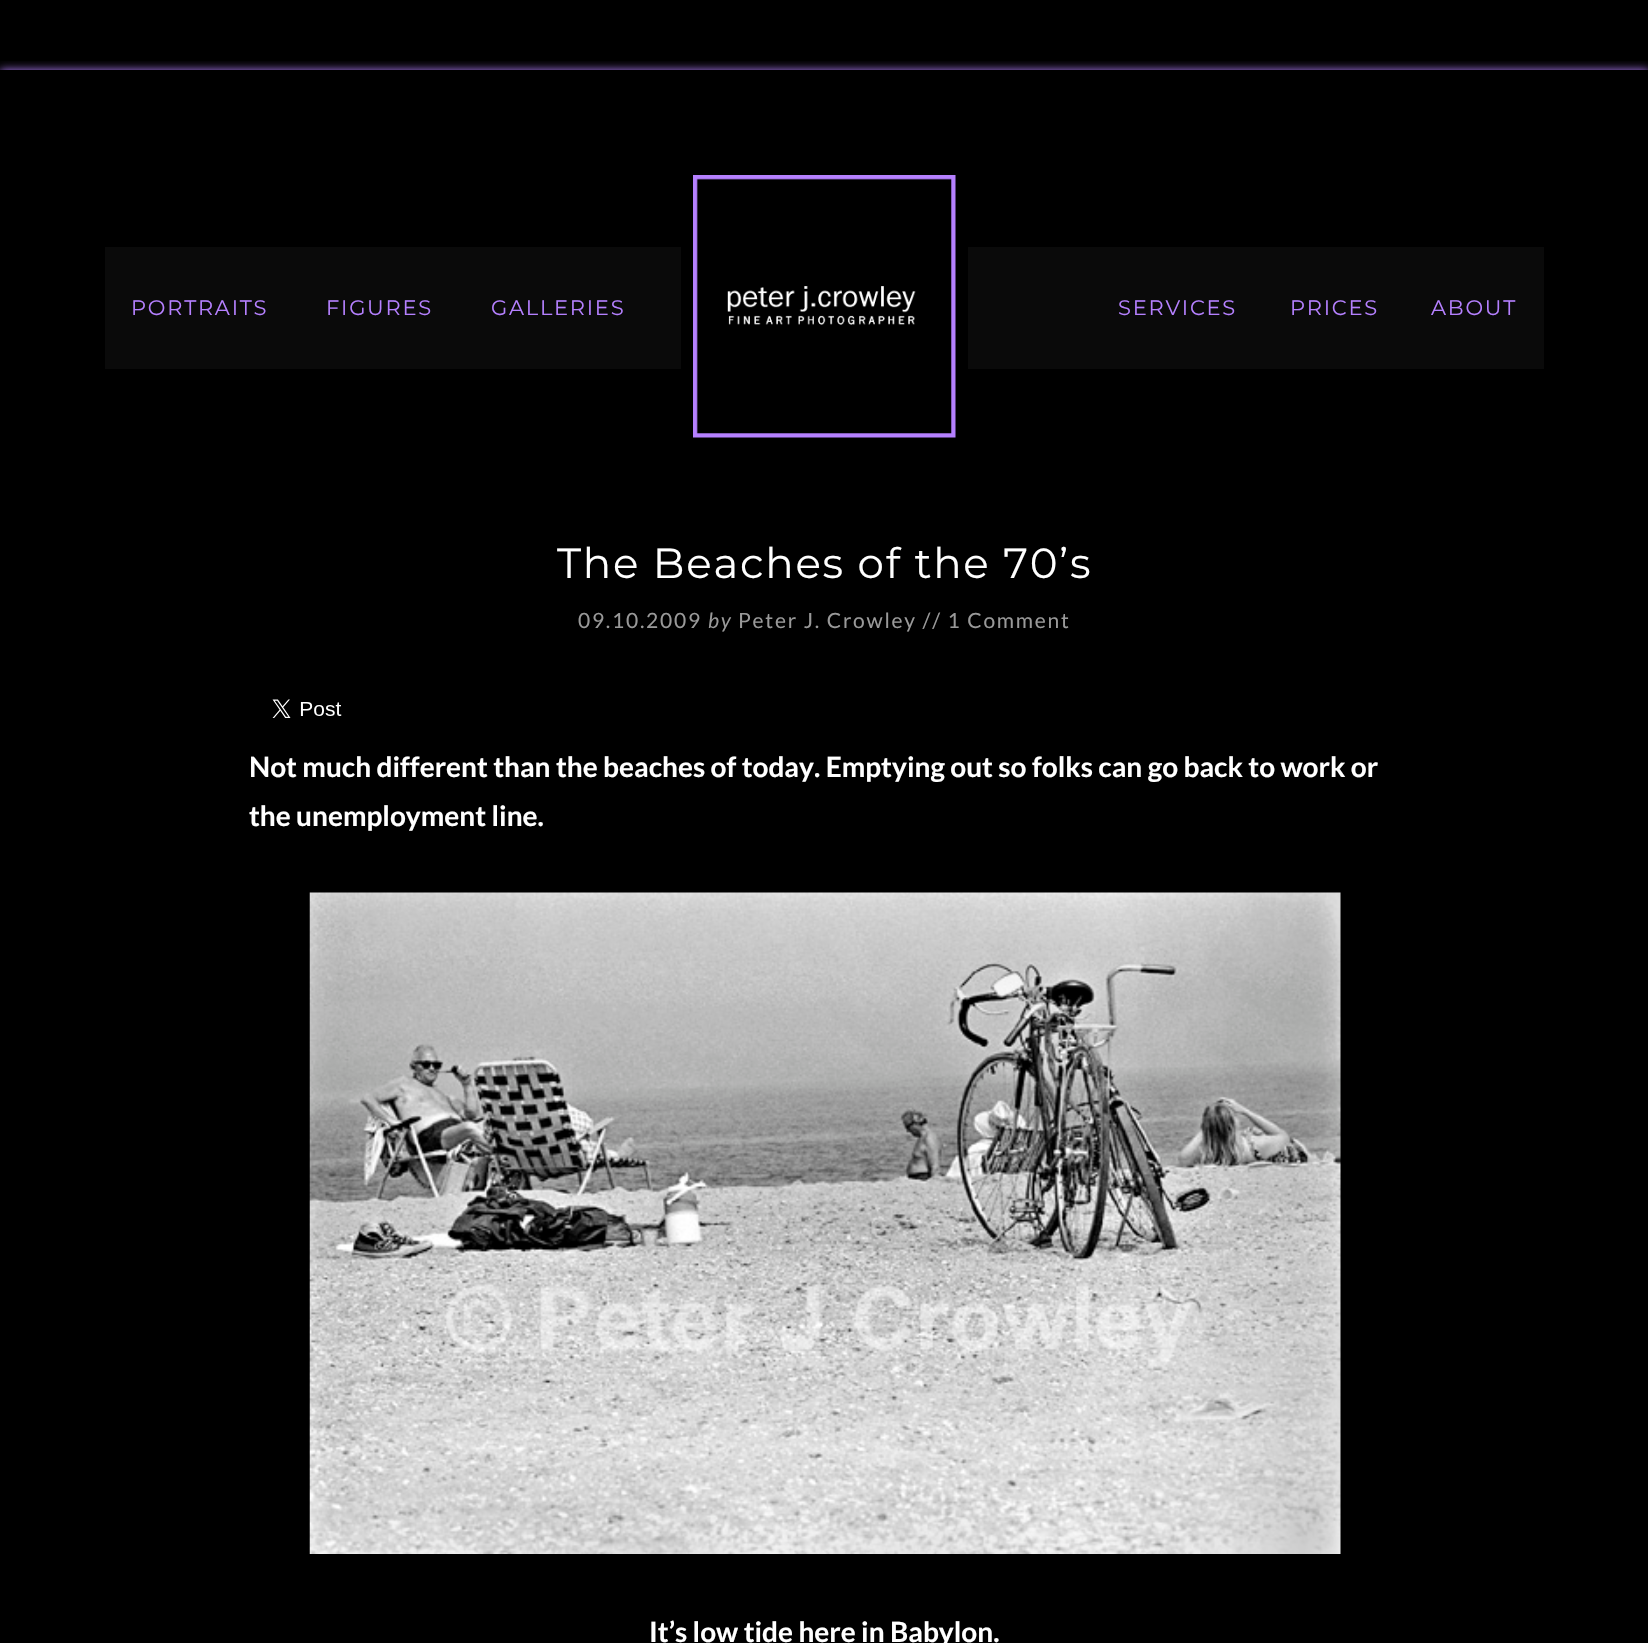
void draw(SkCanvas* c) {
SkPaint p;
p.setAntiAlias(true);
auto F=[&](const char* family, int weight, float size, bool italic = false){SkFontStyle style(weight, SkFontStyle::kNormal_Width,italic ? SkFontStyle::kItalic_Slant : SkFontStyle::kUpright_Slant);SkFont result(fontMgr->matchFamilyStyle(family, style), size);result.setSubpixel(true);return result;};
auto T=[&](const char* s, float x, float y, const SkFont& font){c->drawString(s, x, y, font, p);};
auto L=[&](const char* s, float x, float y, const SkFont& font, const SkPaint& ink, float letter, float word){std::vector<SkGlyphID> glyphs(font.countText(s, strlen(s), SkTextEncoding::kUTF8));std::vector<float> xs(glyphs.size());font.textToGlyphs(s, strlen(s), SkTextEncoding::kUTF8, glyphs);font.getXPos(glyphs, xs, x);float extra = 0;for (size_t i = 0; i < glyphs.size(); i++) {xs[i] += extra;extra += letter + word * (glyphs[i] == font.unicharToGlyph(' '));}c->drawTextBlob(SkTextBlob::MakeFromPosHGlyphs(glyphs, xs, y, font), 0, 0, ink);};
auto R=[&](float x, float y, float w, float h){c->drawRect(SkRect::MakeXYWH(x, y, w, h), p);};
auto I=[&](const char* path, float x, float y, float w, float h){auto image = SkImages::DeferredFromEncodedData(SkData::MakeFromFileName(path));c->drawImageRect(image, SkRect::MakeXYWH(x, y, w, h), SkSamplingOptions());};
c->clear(0xff000000);
c->save();
c->clipRect(SkRect::MakeXYWH(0,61,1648,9));
p.setColor(0xffb580ff);
p.setMaskFilter(SkMaskFilter::MakeBlur(kNormal_SkBlurStyle, 4.5));
c->drawRect(SkRect::MakeXYWH(0,70,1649,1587),p);
p.setMaskFilter(nullptr);
c->restore();
I("1.png",693,175,263,263);
p.setColor(0xff0a0a0a);
R(105,247,576,122);
auto f1 = F("Montserrat",100,21);
p.setColor(0xffb580ff);
L("PORTRAITS",131,315,f1,p,1.75,0);
L("FIGURES",326,315,f1,p,1.75,0);
L("GALLERIES",491,315,f1,p,1.75,0);
p.setColor(0xff0a0a0a);
R(968,247,576,122);
p.setColor(0xffb580ff);
L("SERVICES",1118,315,f1,p,1.75,0);
L("PRICES",1290,315,f1,p,1.75,0);
L("ABOUT",1431,315,f1,p,1.75,0);
auto f2 = F("Montserrat",100,42);
p.setColor(0xffffffff);
L("The Beaches of the 70’s",557,578,f2,p,1.75,0);
auto f3 = F("Lato",400,21);
p.setColor(0xff999999);
L("09.10.2009",578,628,f3,p,1.75,0);
auto f4 = F("Lato",400,21,true);
L("by",708,628,f4,p,1.75,0);
L("Peter J. Crowley // 1 Comment",738,628,f3,p,1.75,0);
I("2.png",272,699,70,19);
auto f5 = F("Lato",700,28);
p.setColor(0xffffffff);
T("Not much different than the beaches of today. Emptying out so folks can go back to work or",249,777,f5);
T("the unemployment line.",249,826,f5);
I("3.png",309,892,1032,662);
T("It’s low tide here in Babylon.",649,1642,f5);
}
